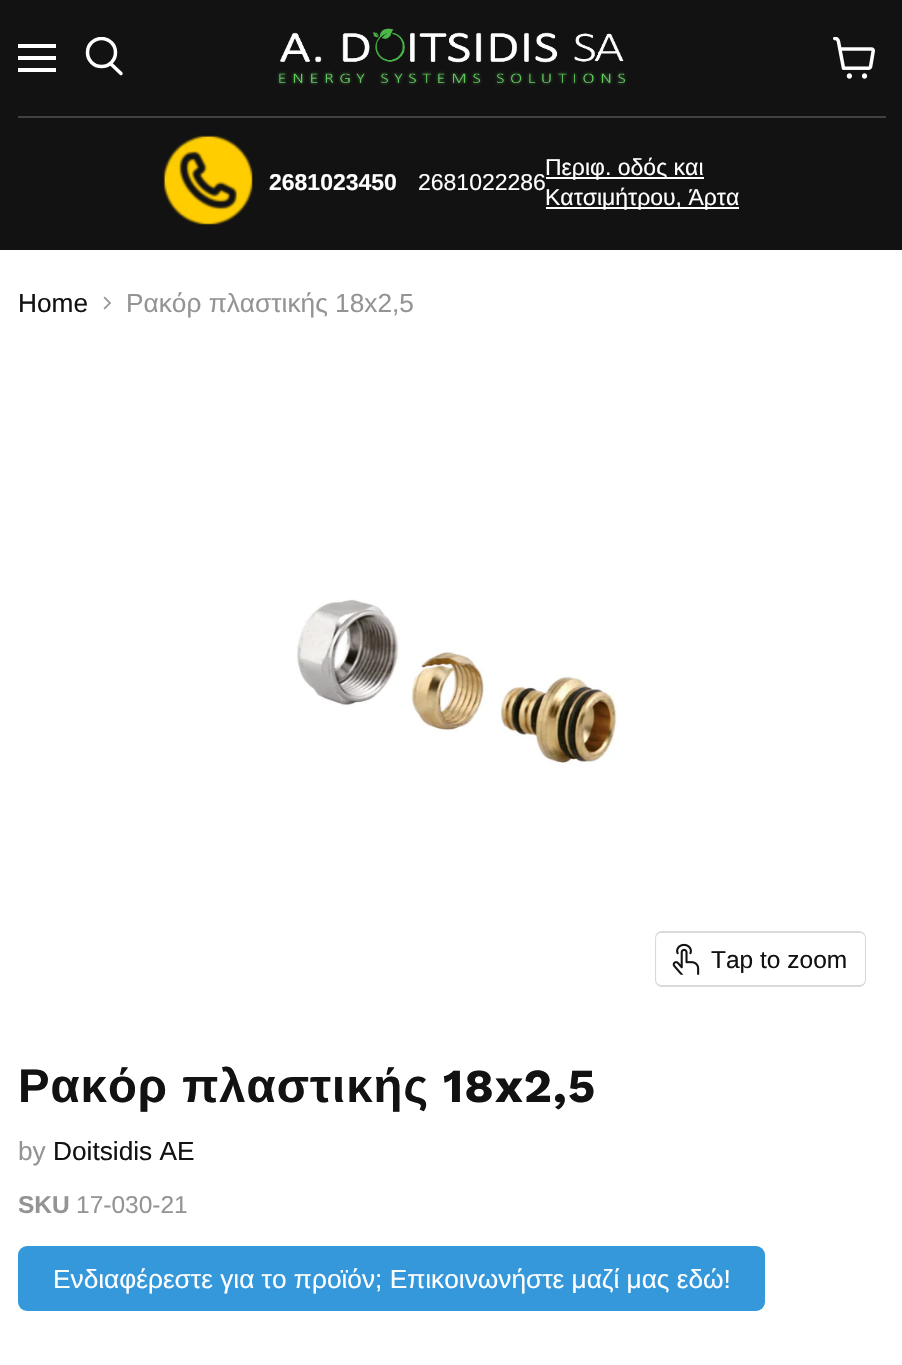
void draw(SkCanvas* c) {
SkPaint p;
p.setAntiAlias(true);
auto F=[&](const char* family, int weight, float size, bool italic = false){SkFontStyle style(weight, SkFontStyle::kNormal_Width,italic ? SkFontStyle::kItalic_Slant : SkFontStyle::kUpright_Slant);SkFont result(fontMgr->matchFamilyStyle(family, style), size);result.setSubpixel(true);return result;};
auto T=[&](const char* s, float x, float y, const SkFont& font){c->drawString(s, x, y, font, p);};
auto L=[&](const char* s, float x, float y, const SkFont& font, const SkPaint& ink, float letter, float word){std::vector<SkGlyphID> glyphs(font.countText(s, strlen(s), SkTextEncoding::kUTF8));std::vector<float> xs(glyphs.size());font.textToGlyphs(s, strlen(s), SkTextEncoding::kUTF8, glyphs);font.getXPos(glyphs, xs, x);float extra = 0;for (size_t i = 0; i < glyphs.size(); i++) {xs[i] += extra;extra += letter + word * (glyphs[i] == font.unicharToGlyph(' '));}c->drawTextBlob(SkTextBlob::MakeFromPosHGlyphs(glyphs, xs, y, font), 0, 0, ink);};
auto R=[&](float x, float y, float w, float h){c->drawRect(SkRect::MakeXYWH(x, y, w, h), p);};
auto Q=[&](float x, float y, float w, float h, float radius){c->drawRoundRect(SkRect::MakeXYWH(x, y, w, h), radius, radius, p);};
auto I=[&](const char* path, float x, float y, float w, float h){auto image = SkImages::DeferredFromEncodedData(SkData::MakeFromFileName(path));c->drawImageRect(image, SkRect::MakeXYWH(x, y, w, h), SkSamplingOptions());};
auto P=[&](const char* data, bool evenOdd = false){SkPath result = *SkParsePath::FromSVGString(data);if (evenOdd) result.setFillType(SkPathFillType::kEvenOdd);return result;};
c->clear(0xffffffff);
p.setColor(0xff121212);
R(0,0,902,250);
p.setColor(0xffffffff);
R(18,44,38,4);
R(18,56,38,4);
R(18,68,38,4);
p.setStroke(true);
p.setStrokeWidth(3.5);
p.setStrokeCap(SkPaint::kRound_Cap);
c->drawPath(P("M121 73.5l-10-9.5"),p);
c->save();
c->clipRect(SkRect::MakeXYWH(84,37,40,42));
p.setStrokeCap(SkPaint::kButt_Cap);
c->drawCircle(101.5,52.5,14,p);
c->restore();
I("1.png",833,37,42,42);
I("2.png",277,28,350,58);
p.setStroke(false);
p.setColor(0xff414141);
R(18,116,868,2);
I("3.png",163,135,90,90);
auto f1 = F("Liberation Sans",700,23);
p.setColor(0xffffffff);
T("2681023450",269,190,f1);
auto f2 = F("Liberation Sans",400,23);
T("2681022286",418,190,f2);
R(546,177,158,2);
T("Περιφ. οδός και",545,175,f2);
R(546,207,193,2);
T("Κατσιμήτρου, Άρτα",545,205,f2);
auto f3 = F("Liberation Sans",400,26.25);
p.setColor(0xff121212);
T("Home",18,312,f3);
I("4.png",103,296,8,14);
p.setColor(0xff949494);
T("Ρακόρ πλαστικής 18x2,5",126,312,f3);
I("5.png",296,599,324,166);
p.setStroke(true);
p.setStrokeWidth(2);
p.setColor(0xffd9d9d9);
c->drawRoundRect(SkRect::MakeXYWH(656,932,209,54),6,6,p);
p.setStroke(false);
p.setColor(0xe6ffffff);
Q(656,933,209,52,5);
I("6.png",672,943,28,32);
auto f4 = F("Liberation Sans",400,24.5);
p.setColor(0xff121212);
T("Tap to zoom",711,968,f4);
auto f5 = F("Liberation Sans",700,47.25);
L("Ρακόρ πλαστικής",18,1102,f5,p,1,0);
auto f6 = F("Work Sans",700,47.25);
L("18x2,5",443,1102,f6,p,1,0);
p.setColor(0xff949494);
T("by",18,1160,f3);
p.setColor(0xff121212);
T("Doitsidis AE",53,1160,f3);
auto f7 = F("Liberation Sans",700,24.5);
p.setColor(0xff949494);
T("SKU",18,1213,f7);
T("17-030-21",76,1213,f4);
p.setColor(0xff3498db);
Q(18,1246,747,65,9);
p.setColor(0xffffffff);
T("Ενδιαφέρεστε για το προϊόν; Επικοινωνήστε μαζί μας εδώ!",53,1288,f3);
}
